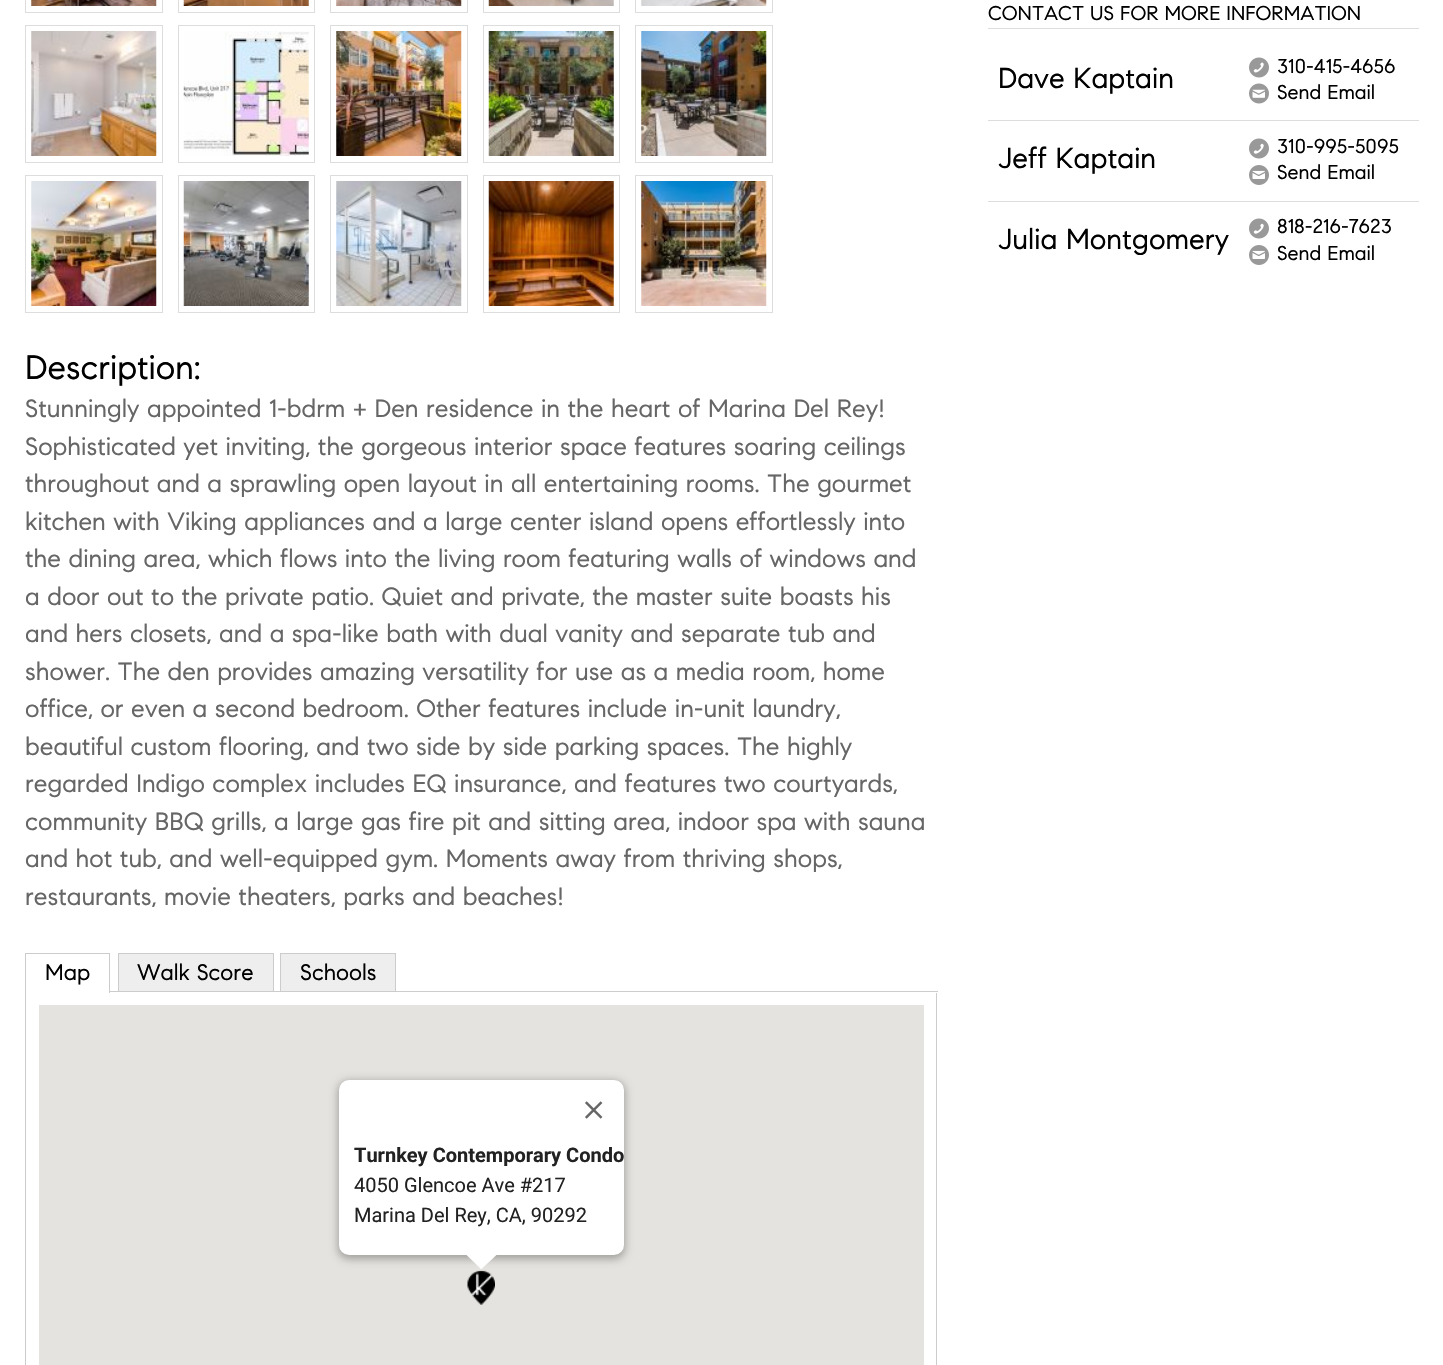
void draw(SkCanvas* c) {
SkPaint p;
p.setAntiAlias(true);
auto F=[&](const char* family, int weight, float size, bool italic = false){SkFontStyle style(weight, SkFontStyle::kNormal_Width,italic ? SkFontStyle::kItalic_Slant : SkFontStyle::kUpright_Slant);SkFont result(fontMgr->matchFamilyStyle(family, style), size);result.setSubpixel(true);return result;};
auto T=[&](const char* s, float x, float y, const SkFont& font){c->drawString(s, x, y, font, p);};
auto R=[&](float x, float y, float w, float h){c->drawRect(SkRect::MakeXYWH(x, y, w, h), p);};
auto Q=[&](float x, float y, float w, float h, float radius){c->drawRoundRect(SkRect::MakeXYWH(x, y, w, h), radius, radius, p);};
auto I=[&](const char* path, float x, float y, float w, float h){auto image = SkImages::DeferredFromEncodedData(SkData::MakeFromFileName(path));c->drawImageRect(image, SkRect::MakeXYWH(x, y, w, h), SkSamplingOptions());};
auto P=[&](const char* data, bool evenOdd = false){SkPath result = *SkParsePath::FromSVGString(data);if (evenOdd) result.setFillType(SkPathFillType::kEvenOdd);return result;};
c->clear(0xffffffff);
auto f1 = F("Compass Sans",400,20);
p.setColor(0xff000000);
T("CONTACT US FOR MORE INFORMATION",988,20,f1);
p.setColor(0xffdddddd);
R(988,28,431,1);
auto f2 = F("Compass Sans",400,28.75);
p.setColor(0xff000000);
T("Dave Kaptain",998,88,f2);
I("1.png",1249,57,20,21);
T("310-415-4656",1277,73,f1);
I("2.png",1249,83,20,21);
T("Send Email",1277,99,f1);
p.setColor(0xffdddddd);
R(988,120,431,1);
p.setColor(0xff000000);
T("Jeff Kaptain",998,168,f2);
I("3.png",1249,138,20,21);
T("310-995-5095",1277,153,f1);
I("4.png",1249,165,20,20);
T("Send Email",1277,179,f1);
p.setColor(0xffdddddd);
R(988,201,431,1);
p.setColor(0xff000000);
T("Julia Montgomery",998,249,f2);
I("3.png",1249,218,20,21);
T("818-216-7623",1277,233,f1);
I("4.png",1249,245,20,20);
T("Send Email",1277,260,f1);
p.setStroke(true);
p.setStrokeWidth(1);
p.setColor(0xffdddddd);
c->drawRect(SkRect::MakeXYWH(25.5,-.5,137,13),p);
I("5.png",31,0,126,6);
c->drawRect(SkRect::MakeXYWH(178.5,-.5,136,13),p);
I("6.png",183,0,126,6);
c->drawRect(SkRect::MakeXYWH(330.5,-.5,137,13),p);
I("7.png",336,0,126,6);
c->drawRect(SkRect::MakeXYWH(483.5,-.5,136,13),p);
I("8.png",488,0,126,6);
c->drawRect(SkRect::MakeXYWH(635.5,-.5,137,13),p);
I("9.png",641,0,126,6);
c->drawRect(SkRect::MakeXYWH(25.5,25.5,137,137),p);
I("10.png",31,31,126,125);
c->drawRect(SkRect::MakeXYWH(178.5,25.5,136,137),p);
I("11.png",183,31,126,125);
c->drawRect(SkRect::MakeXYWH(330.5,25.5,137,137),p);
I("12.png",336,31,126,125);
c->drawRect(SkRect::MakeXYWH(483.5,25.5,136,137),p);
I("13.png",488,31,126,125);
c->drawRect(SkRect::MakeXYWH(635.5,25.5,137,137),p);
I("14.png",641,31,126,125);
c->drawRect(SkRect::MakeXYWH(25.5,175.5,137,137),p);
I("15.png",31,181,126,125);
c->drawRect(SkRect::MakeXYWH(178.5,175.5,136,137),p);
I("16.png",183,181,126,125);
c->drawRect(SkRect::MakeXYWH(330.5,175.5,137,137),p);
I("17.png",336,181,126,125);
c->drawRect(SkRect::MakeXYWH(483.5,175.5,136,137),p);
I("18.png",488,181,126,125);
c->drawRect(SkRect::MakeXYWH(635.5,175.5,137,137),p);
I("19.png",641,181,126,125);
auto f3 = F("Compass Sans",400,33.75);
p.setStroke(false);
p.setColor(0xff000000);
T("Description:",25,379,f3);
auto f4 = F("Compass Sans",400,25);
p.setColor(0xff666666);
T("Stunningly appointed 1-bdrm + Den residence in the heart of Marina Del Rey!",25,417,f4);
T("Sophisticated yet inviting, the gorgeous interior space features soaring ceilings",25,455,f4);
T("throughout and a sprawling open layout in all entertaining rooms. The gourmet",25,492,f4);
T("kitchen with Viking appliances and a large center island opens effortlessly into",25,530,f4);
T("the dining area, which flows into the living room featuring walls of windows and",25,567,f4);
T("a door out to the private patio. Quiet and private, the master suite boasts his",25,605,f4);
T("and hers closets, and a spa-like bath with dual vanity and separate tub and",25,642,f4);
T("shower. The den provides amazing versatility for use as a media room, home",25,680,f4);
T("office, or even a second bedroom. Other features include in-unit laundry,",25,717,f4);
T("beautiful custom flooring, and two side by side parking spaces. The highly",25,755,f4);
T("regarded Indigo complex includes EQ insurance, and features two courtyards,",25,792,f4);
T("community BBQ grills, a large gas fire pit and sitting area, indoor spa with sauna",25,830,f4);
T("and hot tub, and well-equipped gym. Moments away from thriving shops,",25,867,f4);
T("restaurants, movie theaters, parks and beaches!",25,905,f4);
p.setColor(0xffcccccc);
R(110,991,828,1);
auto f5 = F("Compass Sans",400,22.5);
p.setColor(0xff000000);
T("Map",45,980,f5);
p.setColor(0xffcccccc);
R(25,953,85,1);
R(109,953,1,40);
R(25,953,1,40);
p.setColor(0xffeeeeee);
R(119,954,154,37);
p.setColor(0xff000000);
T("Walk Score",137,980,f5);
p.setColor(0xffcccccc);
R(118,953,156,1);
R(273,953,1,38);
R(118,953,1,38);
p.setColor(0xffeeeeee);
R(281,954,114,37);
p.setColor(0xff000000);
T("Schools",300,980,f5);
p.setColor(0xffcccccc);
R(280,953,116,1);
R(395,953,1,38);
R(280,953,1,38);
R(936,993,1,372);
R(25,993,1,372);
p.setColor(0xffe5e3df);
R(39,1005,885,360);
I("21.png",467,1270,28,35);
p.setColor(0x4d000000);
p.setMaskFilter(SkMaskFilter::MakeBlur(kNormal_SkBlurStyle, 4.5));
c->drawRoundRect(SkRect::MakeXYWH(338,1081,287,178),11,11,p);
p.setMaskFilter(nullptr);
p.setColor(0xffffffff);
Q(339,1080,285,175,10);
I("20.png",585,1101,18,18);
auto f6 = F("Roboto",700,20);
p.setColor(0xff222222);
T("Turnkey Contemporary Condo",354,1162,f6);
auto f7 = F("Roboto",400,20);
T("4050 Glencoe Ave #217",354,1192,f7);
T("Marina Del Rey, CA, 90292",354,1222,f7);
p.setColor(0xffffffff);
c->drawPath(P("M466 1254.5h31l-15.5 14.5h-.5z"),p);
}
